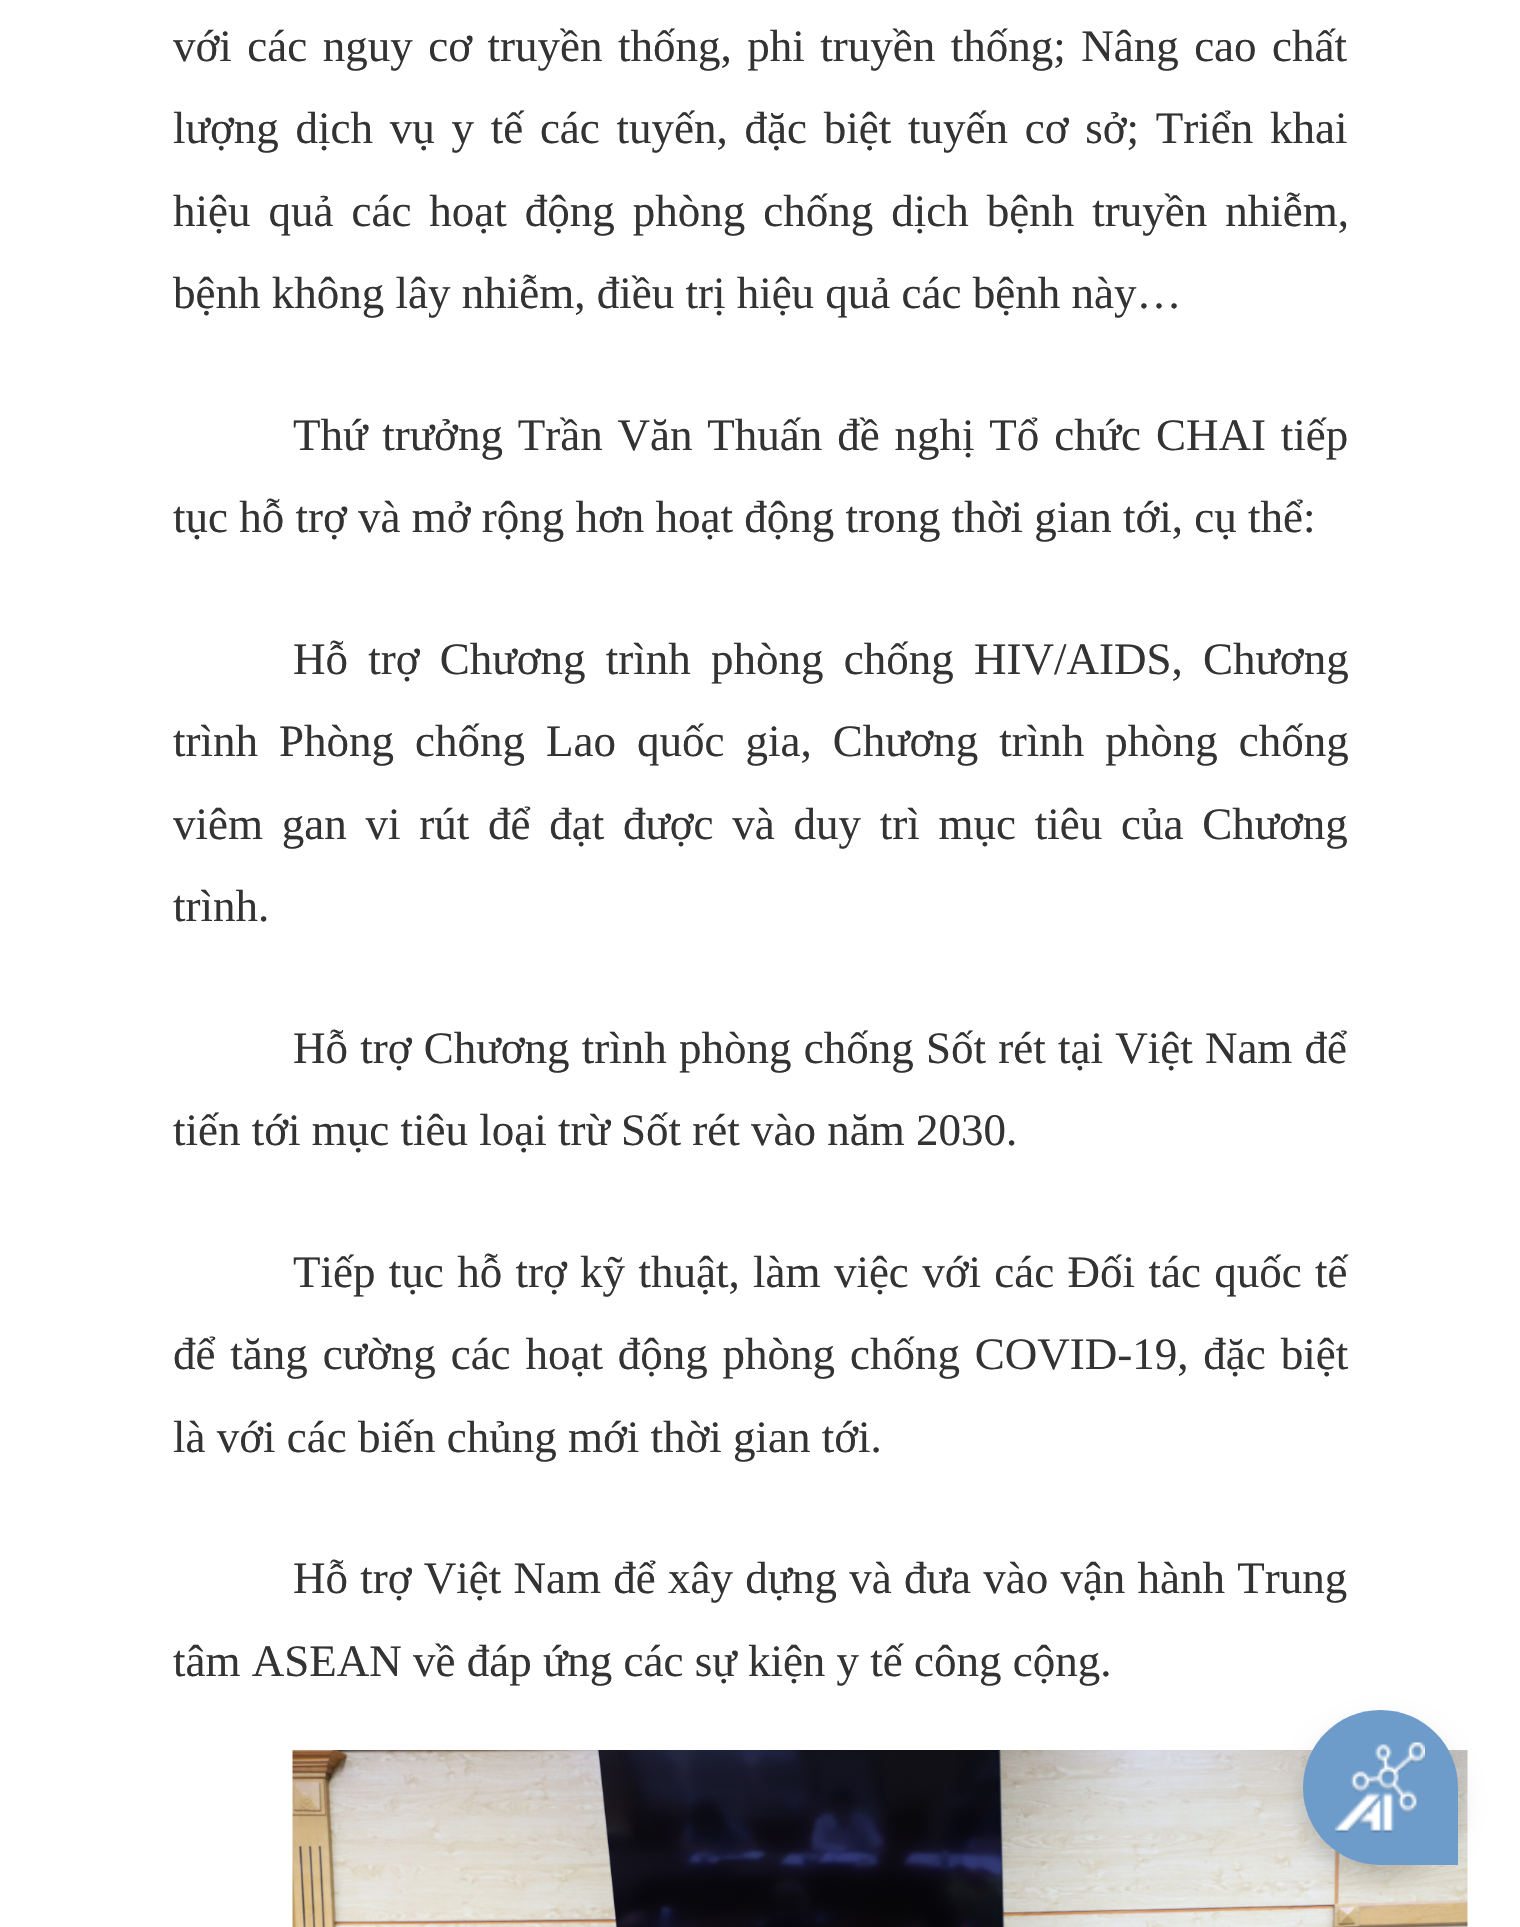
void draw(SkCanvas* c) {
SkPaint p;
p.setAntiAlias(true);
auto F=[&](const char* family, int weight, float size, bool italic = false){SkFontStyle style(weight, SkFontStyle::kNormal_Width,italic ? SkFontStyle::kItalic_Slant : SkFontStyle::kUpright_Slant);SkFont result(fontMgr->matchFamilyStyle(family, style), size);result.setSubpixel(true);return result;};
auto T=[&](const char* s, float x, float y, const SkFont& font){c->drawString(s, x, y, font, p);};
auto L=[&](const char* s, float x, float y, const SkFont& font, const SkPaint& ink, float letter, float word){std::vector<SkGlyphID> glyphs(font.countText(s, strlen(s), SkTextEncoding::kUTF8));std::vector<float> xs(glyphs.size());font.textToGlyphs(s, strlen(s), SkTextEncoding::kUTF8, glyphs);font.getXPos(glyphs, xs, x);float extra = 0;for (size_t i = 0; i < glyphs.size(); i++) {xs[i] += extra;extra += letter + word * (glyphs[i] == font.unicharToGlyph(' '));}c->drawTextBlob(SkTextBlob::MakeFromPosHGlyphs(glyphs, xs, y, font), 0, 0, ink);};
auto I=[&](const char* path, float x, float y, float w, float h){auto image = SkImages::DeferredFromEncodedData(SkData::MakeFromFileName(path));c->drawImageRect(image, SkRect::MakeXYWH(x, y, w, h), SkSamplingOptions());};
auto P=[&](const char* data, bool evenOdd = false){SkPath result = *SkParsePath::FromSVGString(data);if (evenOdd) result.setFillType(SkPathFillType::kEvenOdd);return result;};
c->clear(0xffffffff);
auto f1 = F("Liberation Serif",400,45);
p.setColor(0xff333333);
L("với các nguy cơ truyền thống, phi truyền thống; Nâng cao chất",173,61,f1,p,0,4.25);
L("lượng dịch vụ y tế các tuyến, đặc biệt tuyến cơ sở; Triển khai",173,143,f1,p,0,5.5);
L("hiệu quả các hoạt động phòng chống dịch bệnh truyền nhiễm,",173,226,f1,p,0,6.75);
T("bệnh không lây nhiễm, điều trị hiệu quả các bệnh này…",173,308,f1);
L("Thứ trưởng Trần Văn Thuấn đề nghị Tổ chức CHAI tiếp",293,450,f1,p,0,3.6);
T("tục hỗ trợ và mở rộng hơn hoạt động trong thời gian tới, cụ thể:",173,532,f1);
L("Hỗ trợ Chương trình phòng chống HIV/AIDS, Chương",293,674,f1,p,0,9);
L("trình Phòng chống Lao quốc gia, Chương trình phòng chống",173,756,f1,p,0,9.75);
L("viêm gan vi rút để đạt được và duy trì mục tiêu của Chương",173,839,f1,p,0,7.5);
T("trình.",173,921,f1);
L("Hỗ trợ Chương trình phòng chống Sốt rét tại Việt Nam để",293,1063,f1,p,0,1);
T("tiến tới mục tiêu loại trừ Sốt rét vào năm 2030.",173,1145,f1);
L("Tiếp tục hỗ trợ kỹ thuật, làm việc với các Đối tác quốc tế",293,1287,f1,p,0,2.1);
L("để tăng cường các hoạt động phòng chống COVID-19, đặc biệt",173,1369,f1,p,0,3.6);
T("là với các biến chủng mới thời gian tới.",173,1452,f1);
L("Hỗ trợ Việt Nam để xây dựng và đưa vào vận hành Trung",293,1593,f1,p,0,1);
T("tâm ASEAN về đáp ứng các sự kiện y tế công cộng.",173,1676,f1);
I("1.png",292,1750,1176,177);
p.setColor(0x29000000);
p.setMaskFilter(SkMaskFilter::MakeBlur(kNormal_SkBlurStyle, 12.5));
c->drawRoundRect(SkRect::MakeXYWH(1303,1725,155,155),77.5,77.5,p);
p.setMaskFilter(nullptr);
p.setColor(0xff6d9ccb);
c->drawPath(P("M1380.5 1710c43 0 77.5 34.5 77.5 77.5v77.5h-77.5c-43 0-77.5-34.5-77.5-77.5c0-43 34.5-77.5 77.5-77.5z"),p);
I("2.png",1335,1742,90,91);
}
